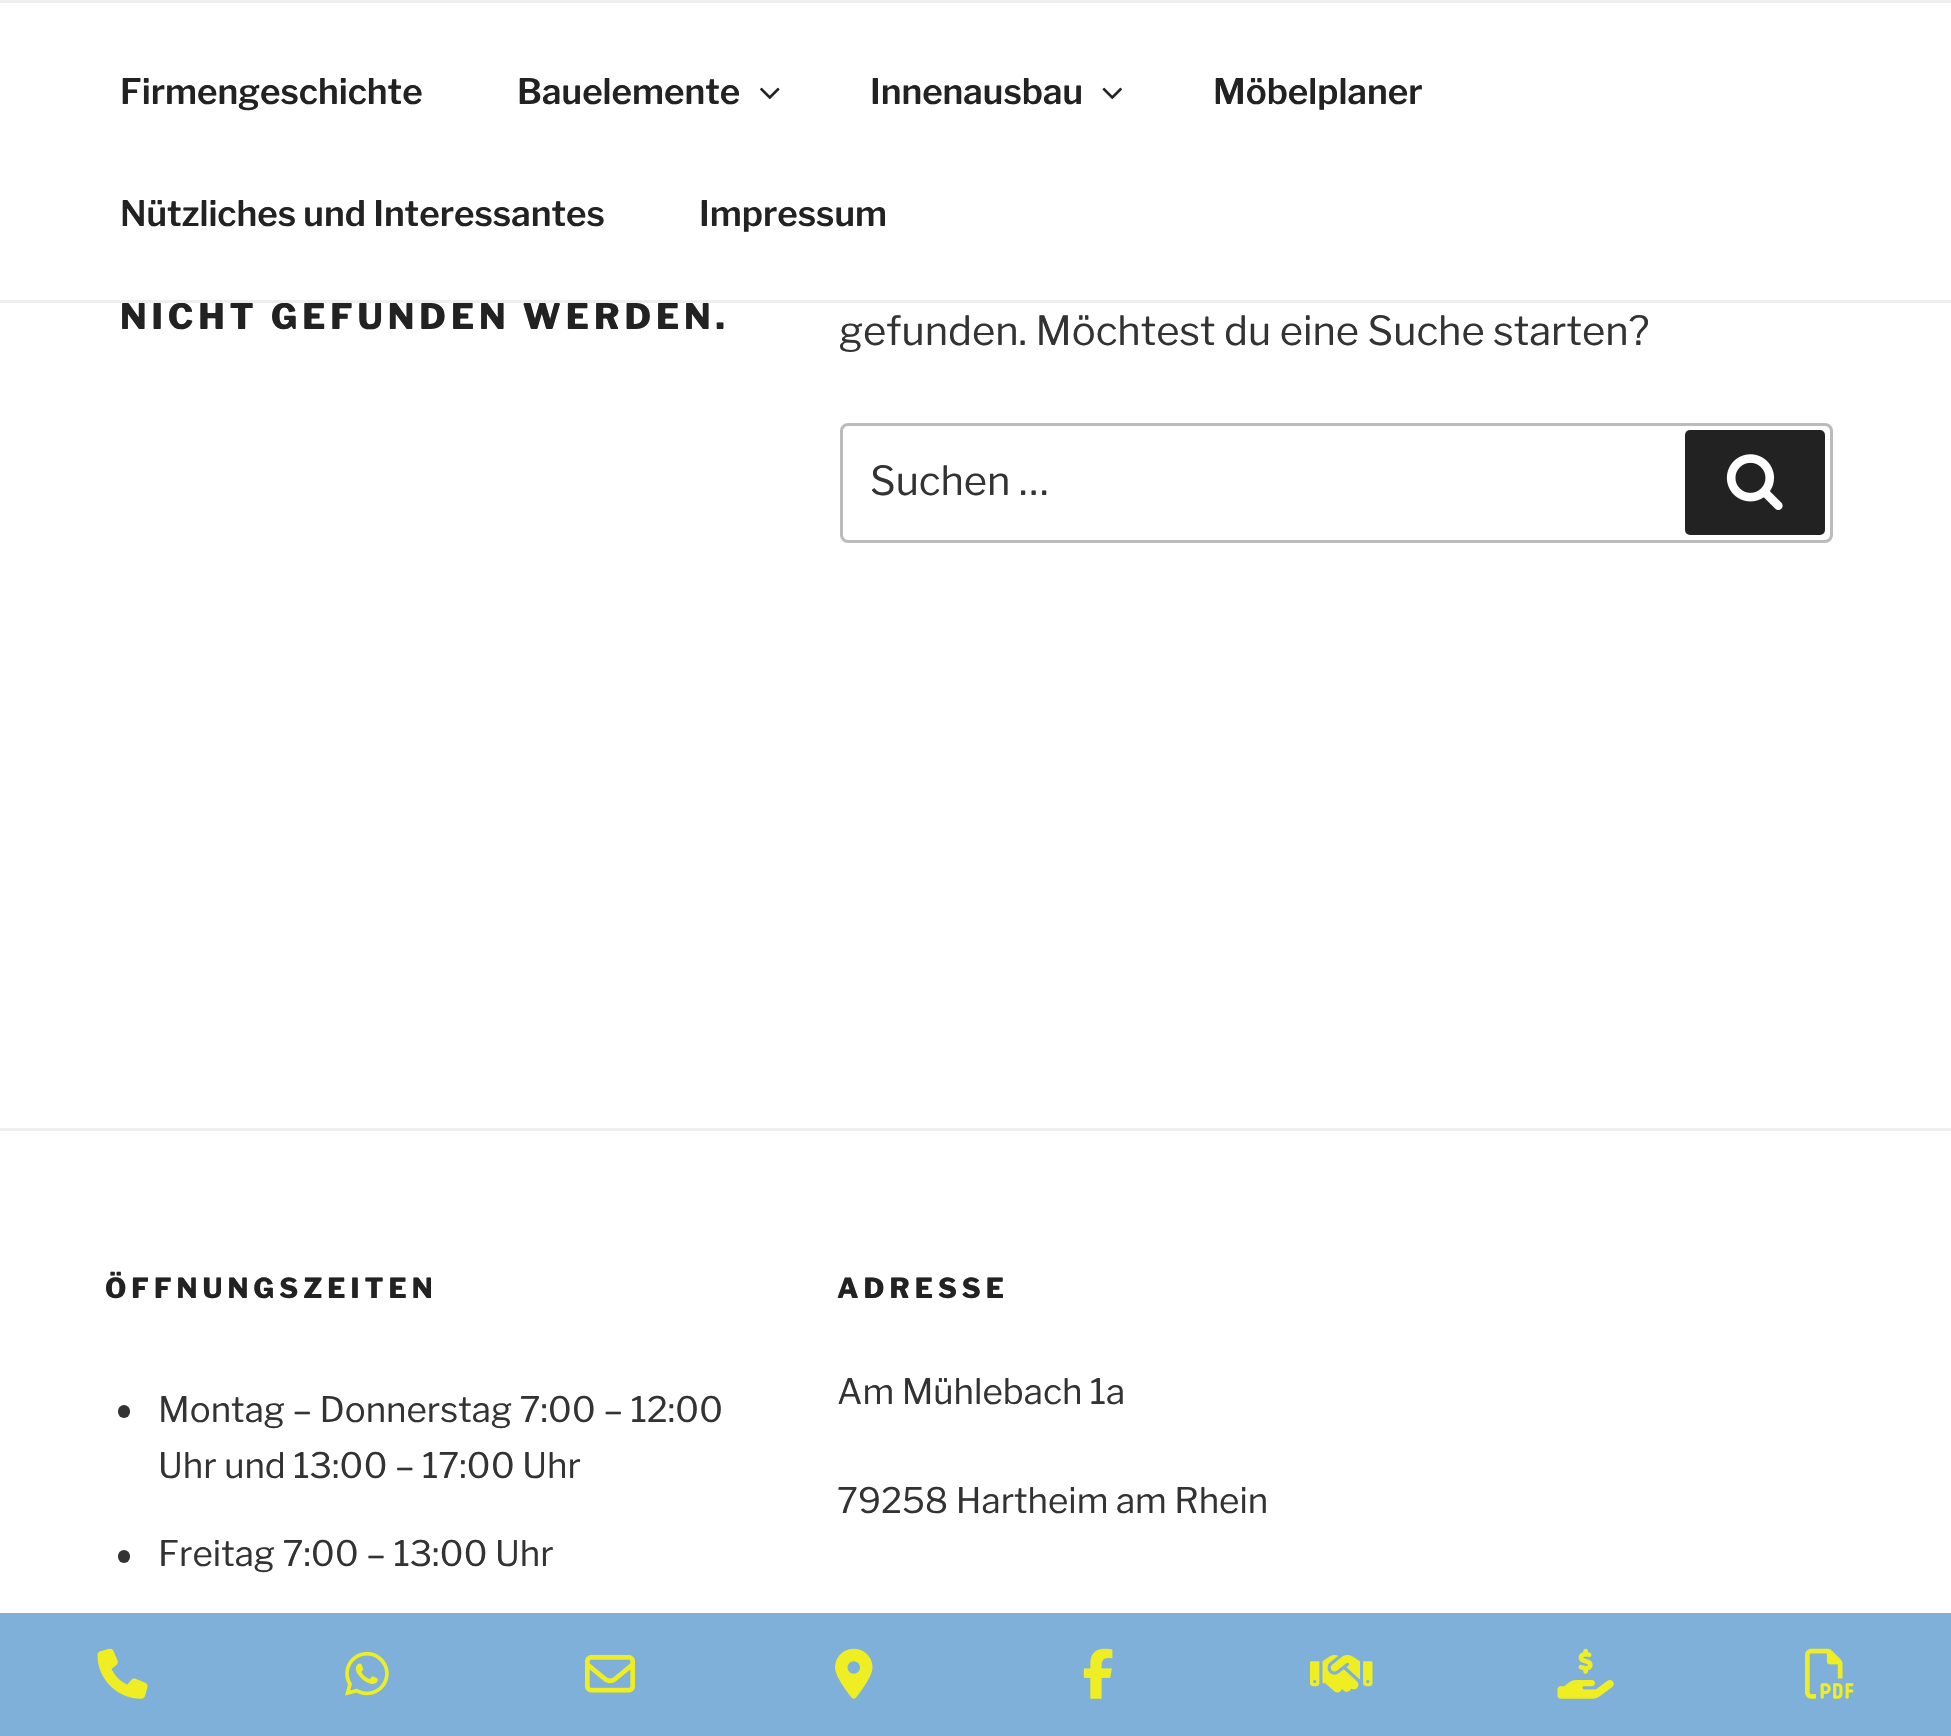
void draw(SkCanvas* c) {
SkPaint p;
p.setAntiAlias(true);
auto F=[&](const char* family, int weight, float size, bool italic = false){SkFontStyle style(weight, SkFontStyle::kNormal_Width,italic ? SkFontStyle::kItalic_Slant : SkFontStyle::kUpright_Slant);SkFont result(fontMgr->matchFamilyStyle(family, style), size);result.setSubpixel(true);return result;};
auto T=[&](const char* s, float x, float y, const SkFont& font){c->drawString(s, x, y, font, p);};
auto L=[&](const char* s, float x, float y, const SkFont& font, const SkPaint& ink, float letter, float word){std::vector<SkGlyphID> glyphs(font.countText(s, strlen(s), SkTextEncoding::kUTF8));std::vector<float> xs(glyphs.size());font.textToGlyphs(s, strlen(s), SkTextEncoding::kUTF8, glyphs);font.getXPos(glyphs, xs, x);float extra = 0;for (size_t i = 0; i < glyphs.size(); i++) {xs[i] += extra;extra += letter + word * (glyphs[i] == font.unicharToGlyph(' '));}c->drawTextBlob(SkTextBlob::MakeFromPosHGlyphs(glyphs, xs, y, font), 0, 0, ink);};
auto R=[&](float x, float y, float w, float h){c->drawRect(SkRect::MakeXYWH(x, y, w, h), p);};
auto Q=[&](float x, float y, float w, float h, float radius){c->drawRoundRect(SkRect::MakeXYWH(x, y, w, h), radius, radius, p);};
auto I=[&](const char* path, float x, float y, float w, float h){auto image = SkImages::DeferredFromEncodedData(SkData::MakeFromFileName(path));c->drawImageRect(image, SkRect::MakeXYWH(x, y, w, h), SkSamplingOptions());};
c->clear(0xffffffff);
p.setColor(0xffeeeeee);
R(0,0,1951,3);
auto f1 = F("Libre Franklin",100,35);
p.setColor(0xff222222);
L("NICHT GEFUNDEN WERDEN.",120,329,f1,p,4.9,0);
p.setColor(0xffeeeeee);
R(0,300,1951,3);
auto f2 = F("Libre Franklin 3",100,35);
p.setColor(0xff222222);
T("Firmengeschichte",120,104,f2);
T("Bauelemente",517,104,f2);
I("1.png",760,87,20,13);
T("Innenausbau",870,104,f2);
I("2.png",1102,87,20,13);
T("Möbelplaner",1213,104,f2);
T("Nützliches und Interessantes",120,226,f2);
T("Impressum",699,226,f2);
auto f3 = F("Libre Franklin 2",100,40);
p.setColor(0xff333333);
T("gefunden. Möchtest du eine Suche starten?",839,345,f3);
p.setStroke(true);
p.setStrokeWidth(3);
p.setColor(0xffbbbbbb);
c->drawRoundRect(SkRect::MakeXYWH(841.5,424.5,990,117),6.5,6.5,p);
p.setStroke(false);
p.setColor(0xff333333);
T("Suchen …",870,495,f3);
p.setColor(0xff222222);
Q(1685,430,140,105,5);
I("3.png",1726,454,57,56);
p.setColor(0xffeeeeee);
R(0,1128,1951,3);
auto f4 = F("Libre Franklin",100,27.5);
p.setColor(0xff222222);
L("ÖFFNUNGSZEITEN",105,1298,f4,p,5,0);
p.setColor(0xff333333);
Q(118,1405,12,13,6);
auto f5 = F("Libre Franklin 2",100,35);
T("Montag – Donnerstag 7:00 – 12:00",158,1422,f5);
T("Uhr und 13:00 – 17:00 Uhr",158,1478,f5);
Q(118,1550,12,13,6);
T("Freitag 7:00 – 13:00 Uhr",158,1566,f5);
p.setColor(0xff222222);
L("ADRESSE",837,1298,f4,p,5,0);
p.setColor(0xff333333);
T("Am Mühlebach 1a",837,1404,f5);
T("79258 Hartheim am Rhein",837,1513,f5);
p.setColor(0xff7fb0da);
R(0,1613,1951,123);
I("4.png",97,1648,51,51);
I("5.png",345,1651,44,45);
I("6.png",585,1655,50,38);
I("7.png",835,1648,38,51);
I("8.png",1083,1648,30,51);
I("9.png",1310,1655,63,38);
I("10.png",1557,1648,57,51);
I("11.png",1805,1648,49,51);
}
